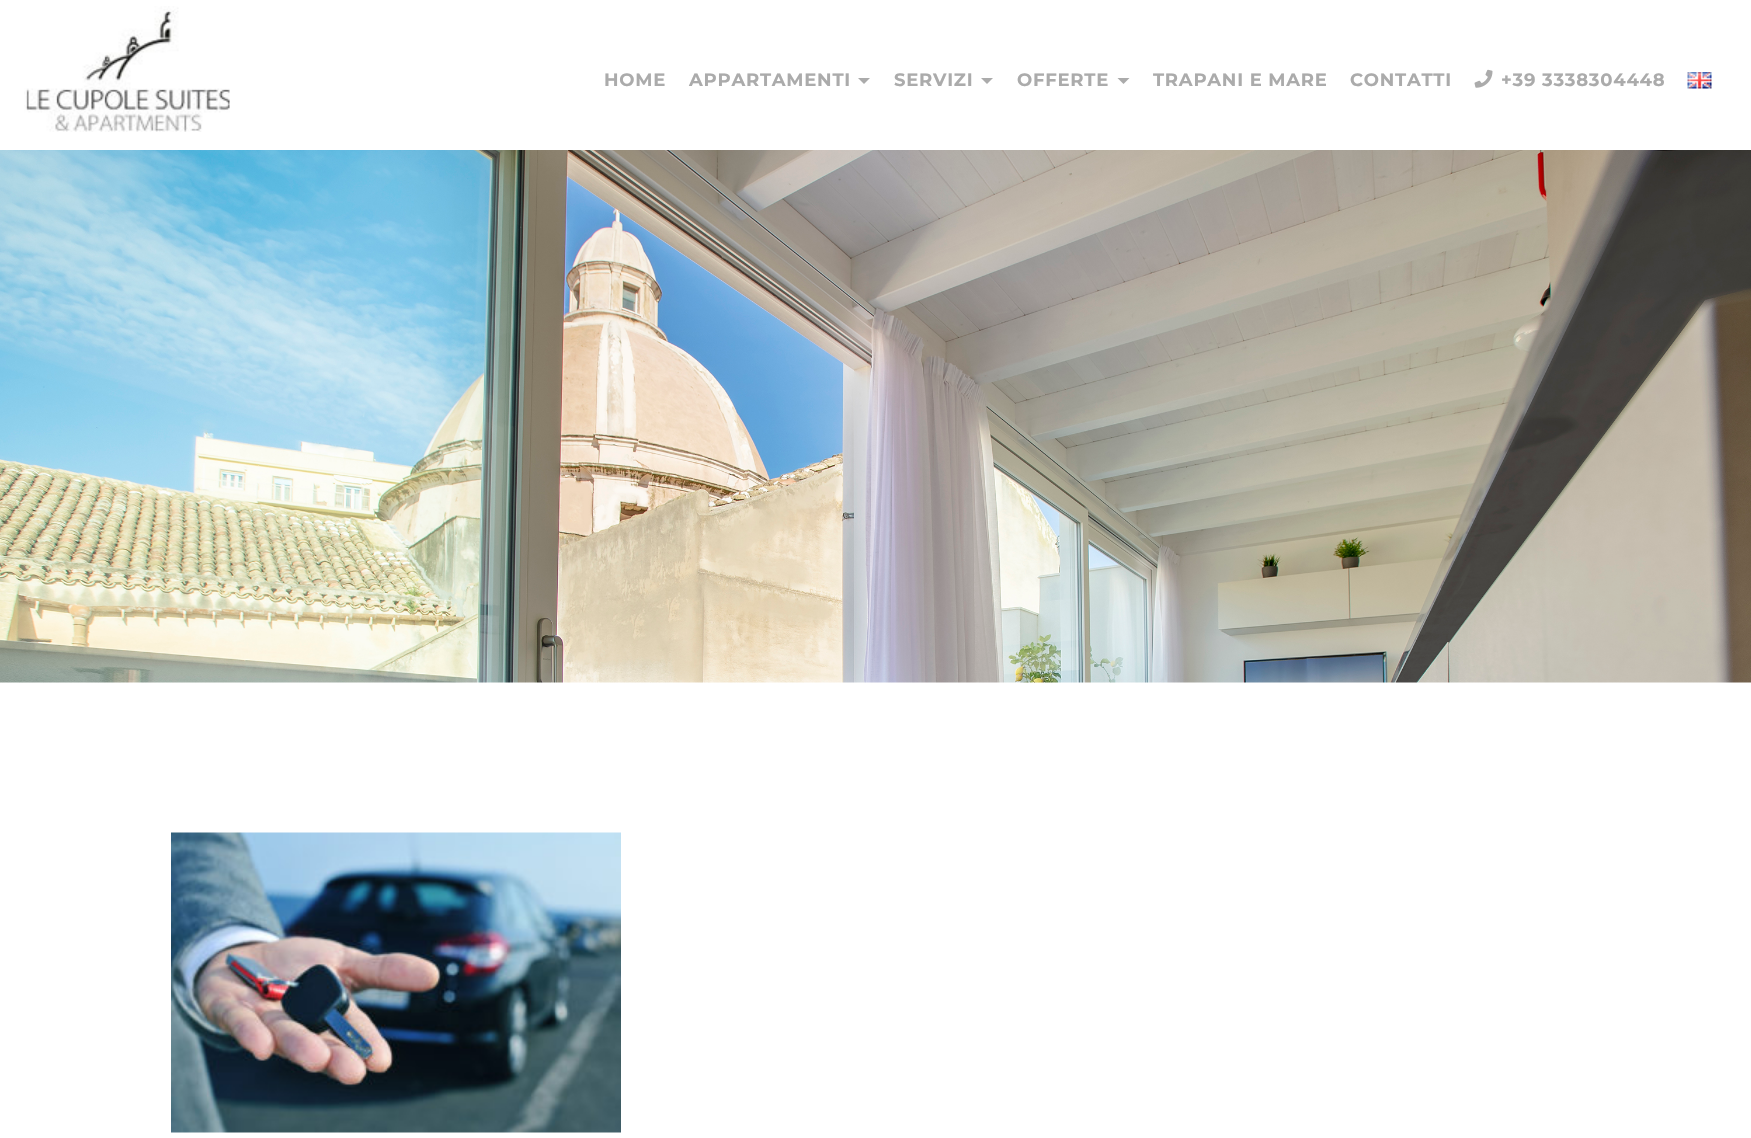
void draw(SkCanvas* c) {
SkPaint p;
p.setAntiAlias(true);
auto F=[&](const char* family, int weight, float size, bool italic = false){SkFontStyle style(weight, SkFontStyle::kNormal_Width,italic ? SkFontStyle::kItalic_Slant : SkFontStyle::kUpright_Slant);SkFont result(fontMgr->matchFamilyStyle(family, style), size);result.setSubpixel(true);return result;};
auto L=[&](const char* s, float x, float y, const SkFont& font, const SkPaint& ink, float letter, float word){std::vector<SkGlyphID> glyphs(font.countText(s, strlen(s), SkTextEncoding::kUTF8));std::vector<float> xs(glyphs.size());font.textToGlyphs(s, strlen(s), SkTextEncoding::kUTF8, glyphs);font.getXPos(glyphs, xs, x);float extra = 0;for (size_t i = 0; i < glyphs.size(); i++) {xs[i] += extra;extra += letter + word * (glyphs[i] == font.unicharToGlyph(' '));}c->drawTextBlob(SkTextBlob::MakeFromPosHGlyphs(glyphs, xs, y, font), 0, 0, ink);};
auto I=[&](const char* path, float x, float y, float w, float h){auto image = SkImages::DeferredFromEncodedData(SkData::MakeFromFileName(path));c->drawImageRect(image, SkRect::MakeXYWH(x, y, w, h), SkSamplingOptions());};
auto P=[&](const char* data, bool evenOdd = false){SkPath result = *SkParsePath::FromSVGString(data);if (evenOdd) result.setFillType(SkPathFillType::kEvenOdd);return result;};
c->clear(0xffffffff);
I("1.png",24,6,206,126);
auto f1 = F("Montserrat",700,18);
p.setColor(0xffababab);
L("HOME",604,86,f1,p,.75,0);
L("APPARTAMENTI",689,86,f1,p,.75,0);
c->drawPath(P("M858 78h12l-6 6z"),p);
L("SERVIZI",894,86,f1,p,.75,0);
c->drawPath(P("M981 78h12l-6 6z"),p);
L("OFFERTE",1017,86,f1,p,.75,0);
c->drawPath(P("M1117.5 78h12l-6 6z"),p);
L("TRAPANI E MARE",1153,86,f1,p,.75,0);
L("CONTATTI",1350,86,f1,p,.75,0);
I("2.png",1474,69,19,19);
L("+39 3338304448",1501,86,f1,p,.75,0);
I("3.png",1687,72,25,17);
I("4.png",0,150,1751,533);
I("5.png",171,832,450,301);
}
